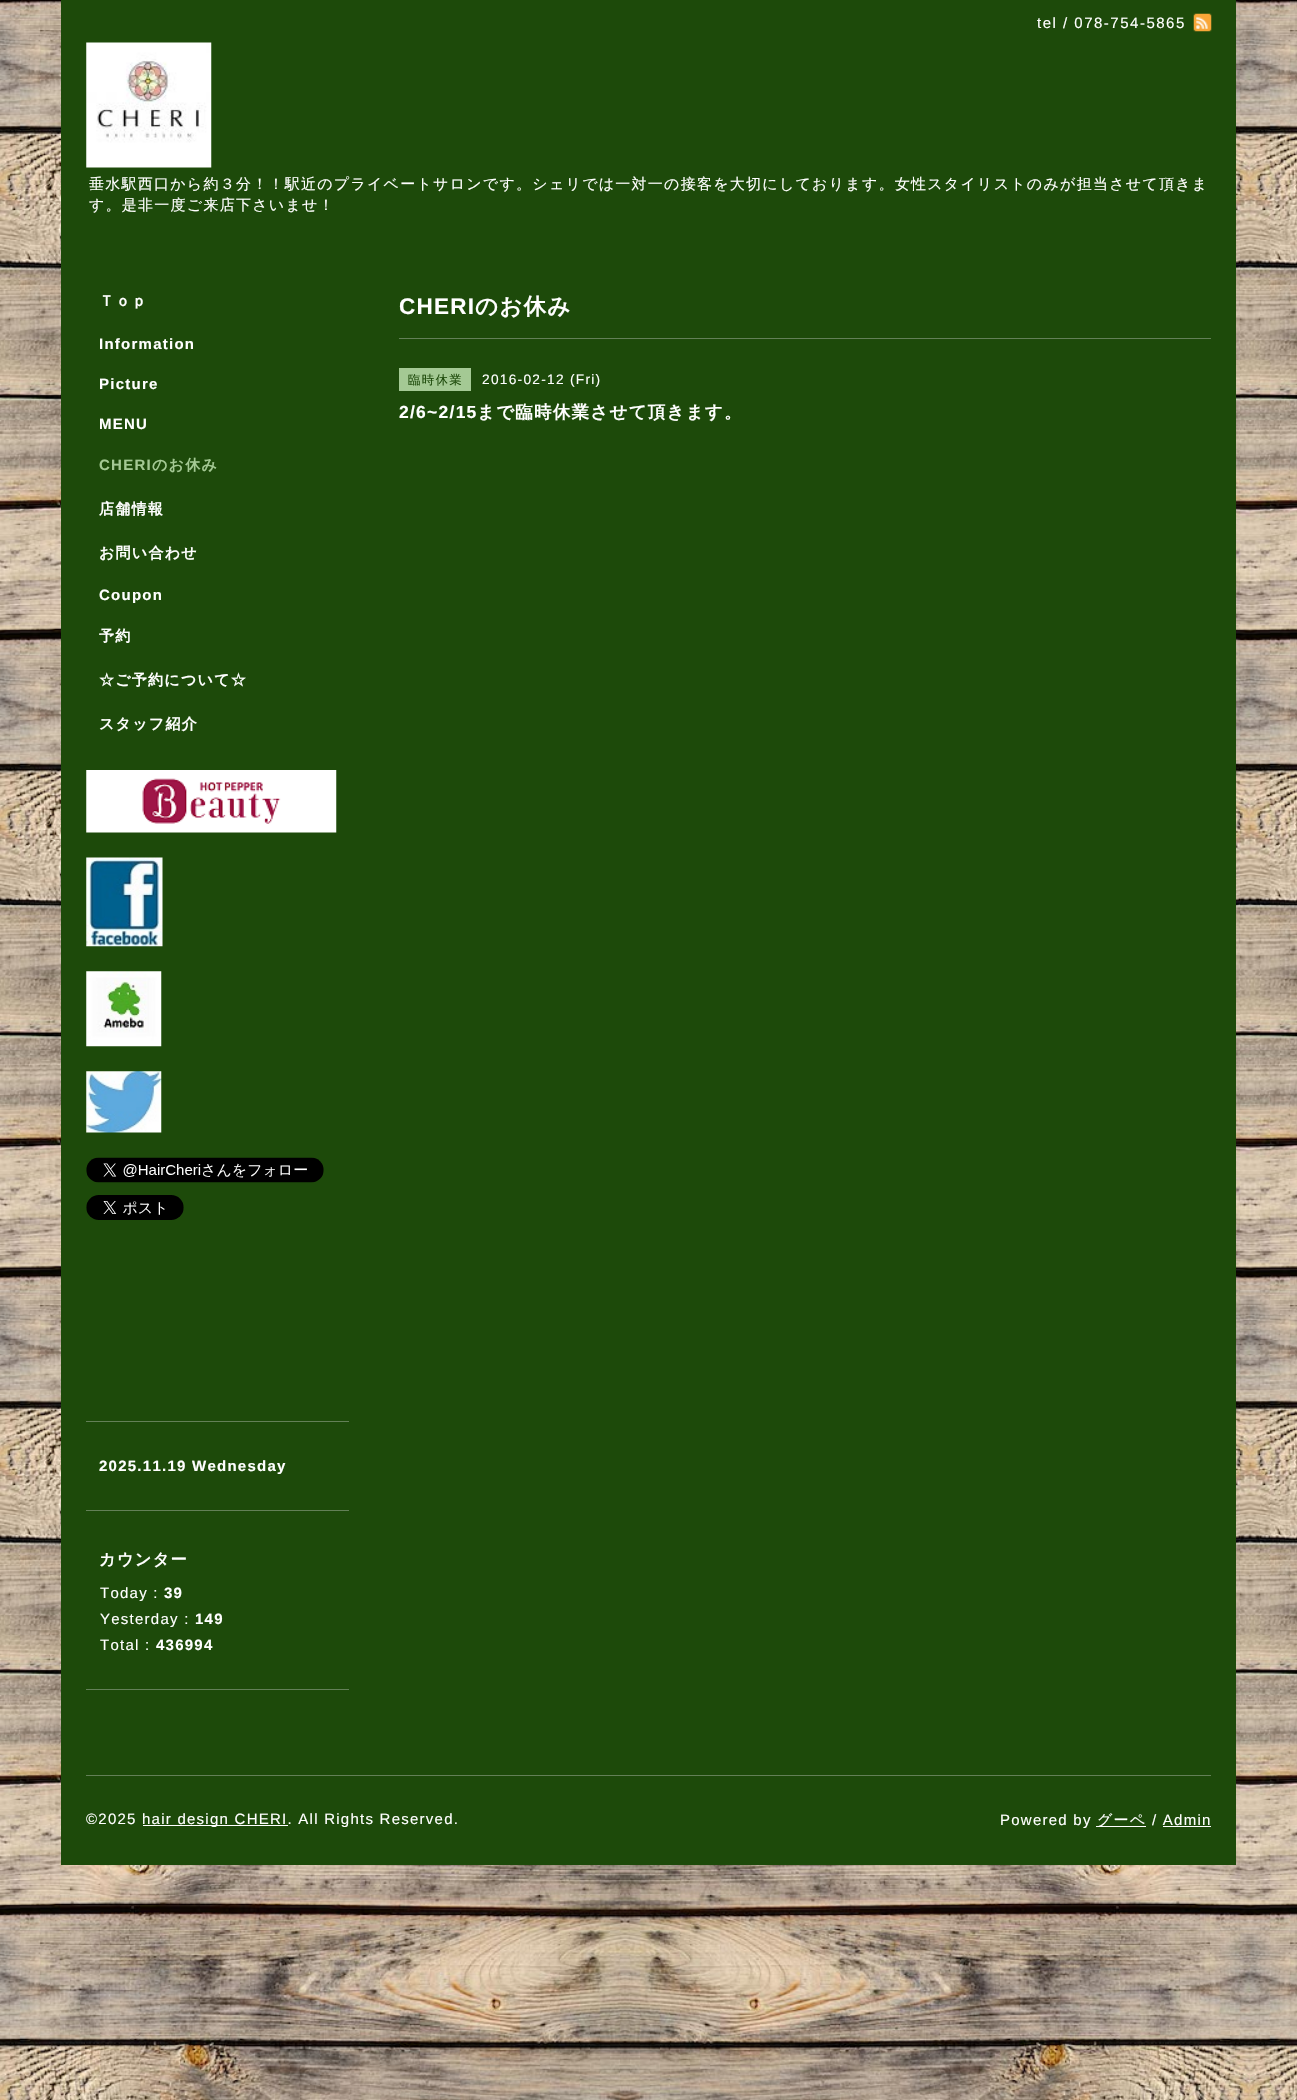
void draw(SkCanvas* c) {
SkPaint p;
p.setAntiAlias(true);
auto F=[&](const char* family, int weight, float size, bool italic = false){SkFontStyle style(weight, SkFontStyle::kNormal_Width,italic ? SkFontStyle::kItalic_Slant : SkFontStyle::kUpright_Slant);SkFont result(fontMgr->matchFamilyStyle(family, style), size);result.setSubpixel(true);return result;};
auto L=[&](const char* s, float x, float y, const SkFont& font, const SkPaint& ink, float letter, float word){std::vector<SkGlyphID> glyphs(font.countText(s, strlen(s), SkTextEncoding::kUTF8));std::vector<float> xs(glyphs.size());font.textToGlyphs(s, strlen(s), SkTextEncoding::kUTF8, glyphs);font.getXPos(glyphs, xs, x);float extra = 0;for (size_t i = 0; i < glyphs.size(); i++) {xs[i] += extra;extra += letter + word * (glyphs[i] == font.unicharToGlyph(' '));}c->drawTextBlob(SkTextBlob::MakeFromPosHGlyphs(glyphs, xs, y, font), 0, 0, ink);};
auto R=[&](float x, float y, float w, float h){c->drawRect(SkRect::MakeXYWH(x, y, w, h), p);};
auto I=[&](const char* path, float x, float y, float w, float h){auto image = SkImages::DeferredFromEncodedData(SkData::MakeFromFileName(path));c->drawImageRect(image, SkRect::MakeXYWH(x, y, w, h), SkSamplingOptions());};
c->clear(0xffffffff);
I("1.png",0,0,1297,2100);
p.setColor(0xff1d4a0a);
R(61,0,1175,1865);
auto f1 = F("Liberation Sans",400,15);
p.setColor(0xffffffff);
L("tel / 078-754-5865",1037,28,f1,p,1.5,0);
I("2.png",1193,13,19,19);
I("3.png",86,42,126,126);
auto f2 = F("WenQuanYi Zen Hei",500,15);
L("垂水駅西口から約３分！！駅近のプライベートサロンです。シェリでは一対一の接客を大切にしております。女性スタイリストのみが担当させて頂きま",89,189,f2,p,1.25,0);
L("す。是非一度ご来店下さいませ！",89,210,f2,p,1.25,0);
auto f3 = F("WenQuanYi Zen Hei",700,15);
L("Ｔｏｐ",99,306,f3,p,1.25,0);
auto f4 = F("Liberation Sans",700,15);
L("Information",99,349,f4,p,1.25,0);
L("Picture",99,389,f4,p,1.25,0);
L("MENU",99,429,f4,p,1.25,0);
p.setColor(0xffa4c994);
L("CHERI",99,470,f4,p,1.25,0);
L("のお休み",152,470,f3,p,1.25,0);
p.setColor(0xffffffff);
L("店舗情報",99,514,f3,p,1.25,0);
L("お問い合わせ",99,558,f3,p,1.25,0);
L("Coupon",99,600,f4,p,1.25,0);
L("予約",99,641,f3,p,1.25,0);
L("☆ご予約について☆",99,685,f3,p,1.25,0);
L("スタッフ紹介",99,729,f3,p,1.25,0);
I("4.png",86,770,251,63);
I("5.png",86,857,77,90);
I("6.png",86,971,76,76);
I("7.png",86,1071,76,62);
I("8.png",86,1157,238,26);
I("9.png",86,1195,98,25);
auto f5 = F("Liberation Sans",700,22.5);
L("CHERI",399,314,f5,p,1.25,0);
auto f6 = F("WenQuanYi Zen Hei",700,22.5);
L("のお休み",475,314,f6,p,1.25,0);
p.setColor(0xff638057);
R(399,338,812,1);
p.setColor(0xffa4c994);
R(399,368,72,23);
auto f7 = F("WenQuanYi Zen Hei",500,12.5);
p.setColor(0xff1d4a0a);
L("臨時休業",408,384,f7,p,1.25,0);
auto f8 = F("Liberation Sans",400,13.75);
p.setColor(0xffffffff);
L("2016-02-12 (Fri)",482,384,f8,p,1.25,0);
auto f9 = F("Liberation Sans",700,17.5);
L("2/6~2/15",399,418,f9,p,1.25,0);
auto f10 = F("WenQuanYi Zen Hei",700,17.5);
L("まで臨時休業させて頂きます。",477,418,f10,p,1.25,0);
p.setColor(0xff638057);
R(86,1421,263,1);
R(86,1510,263,1);
p.setColor(0xffffffff);
L("2025.11.19 Wednesday",99,1471,f4,p,1.25,0);
p.setColor(0xff638057);
R(86,1689,263,1);
auto f11 = F("WenQuanYi Zen Hei",700,16.25);
p.setColor(0xffffffff);
L("カウンター",99,1565,f11,p,1.25,0);
L("Today :",100,1598,f1,p,1.25,0);
L("39",164,1598,f4,p,1.25,0);
L("Yesterday :",100,1624,f1,p,1.25,0);
L("149",195,1624,f4,p,1.25,0);
L("Total :",100,1650,f1,p,1.25,0);
L("436994",156,1650,f4,p,1.25,0);
p.setColor(0xff638057);
R(86,1775,1125,1);
p.setColor(0xffffffff);
L("©2025",86,1824,f1,p,1.25,0);
R(143,1825,145,1);
L("hair design CHERI. All Rights Reserved.",142,1824,f1,p,1.25,0);
L("Powered by",1000,1825,f1,p,1.25,0);
R(1096,1826,50,1);
L("グーペ",1097,1825,f2,p,1.25,0);
L("/ Admin",1152,1825,f1,p,1.25,0);
R(1163,1826,48,1);
}
